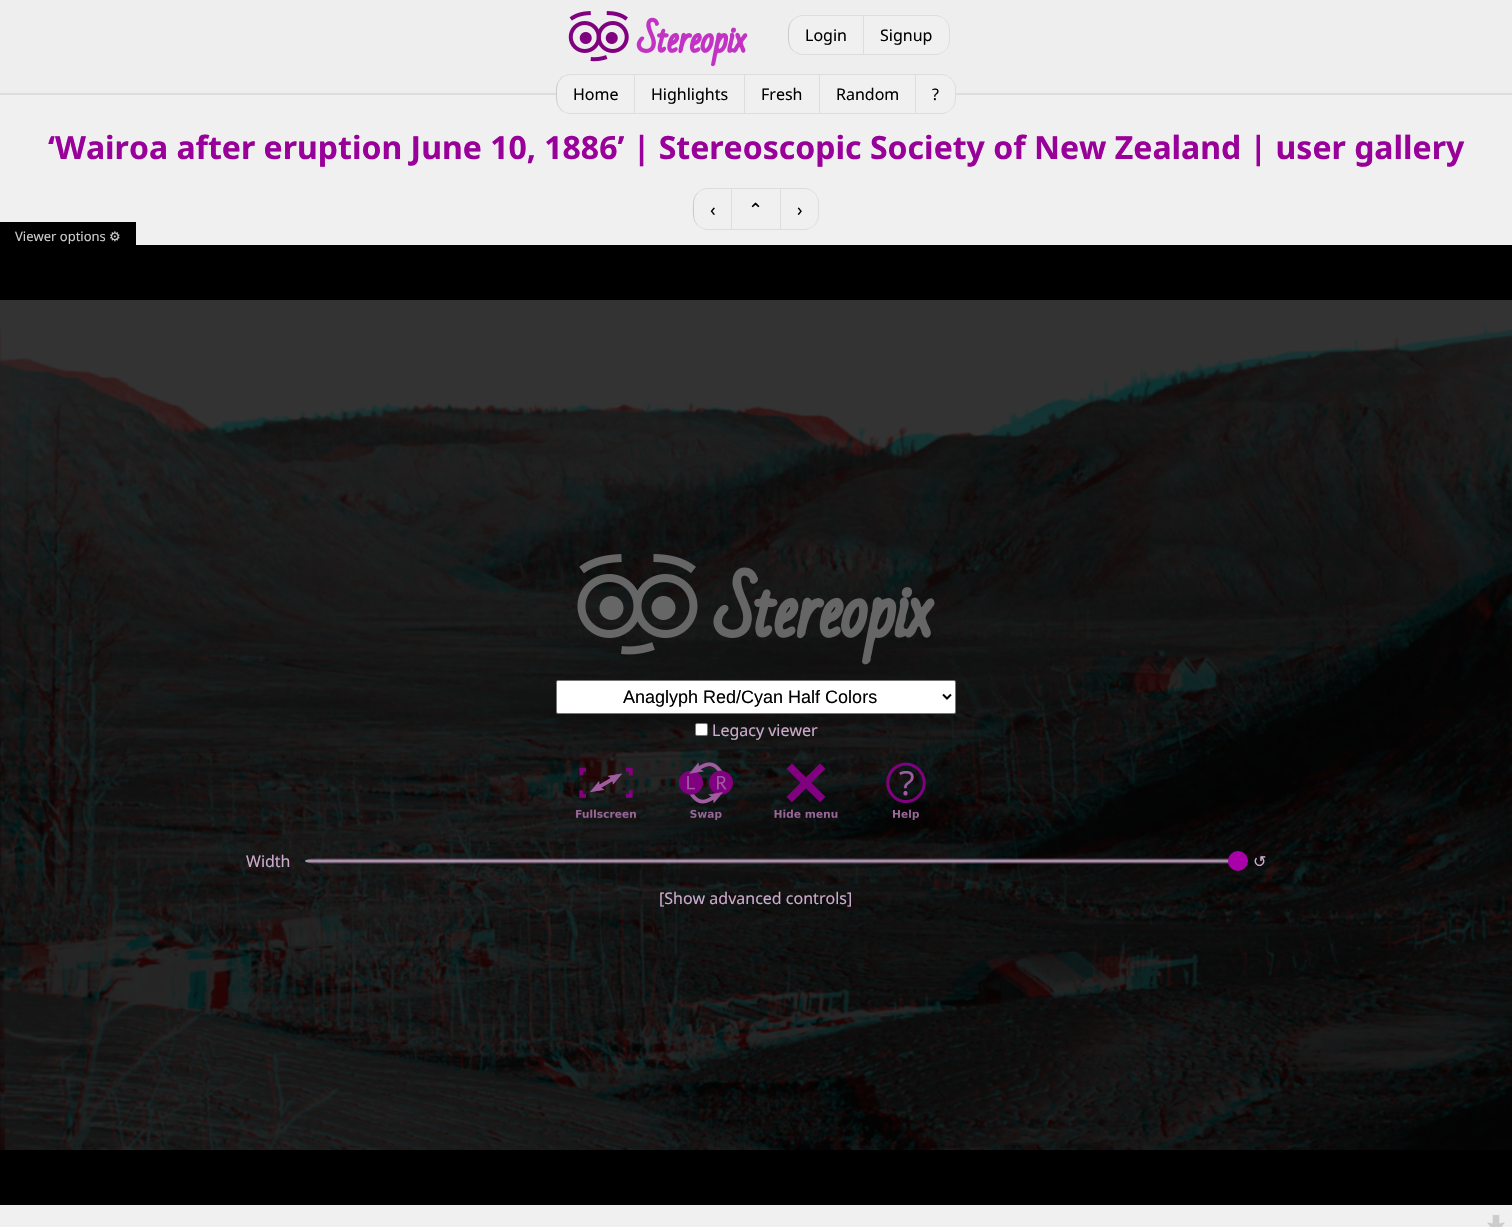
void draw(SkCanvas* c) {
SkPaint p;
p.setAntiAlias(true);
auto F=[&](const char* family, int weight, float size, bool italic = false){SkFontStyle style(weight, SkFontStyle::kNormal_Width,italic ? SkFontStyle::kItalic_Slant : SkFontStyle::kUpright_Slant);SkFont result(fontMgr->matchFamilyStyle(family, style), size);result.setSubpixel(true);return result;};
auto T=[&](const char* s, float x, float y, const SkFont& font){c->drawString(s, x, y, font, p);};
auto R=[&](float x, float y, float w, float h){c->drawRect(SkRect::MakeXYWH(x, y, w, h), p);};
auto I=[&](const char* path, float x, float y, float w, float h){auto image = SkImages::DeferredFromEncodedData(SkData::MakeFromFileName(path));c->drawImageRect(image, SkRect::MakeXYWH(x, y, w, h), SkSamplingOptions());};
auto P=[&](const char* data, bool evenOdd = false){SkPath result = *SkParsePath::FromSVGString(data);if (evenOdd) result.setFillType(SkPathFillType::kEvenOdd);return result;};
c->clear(0xfff0f0f1);
p.setColor(0xffeeeeee);
R(0,0,1512,93);
p.setColor(0xffdddddd);
R(0,93,1512,2);
I("1.png",568,11,180,56);
p.setColor(0xfff0f0f1);
c->drawPath(P("M803 15h61v40h-61c-8.5 0-15-6.5-15-15v-10c0-8.5 6.5-15 15-15z"),p);
p.setColor(0xffdddddd);
c->drawPath(P("M803 15c-4 0-8 2-11 5h1c3-2 6-4 10-4h60l1-1z"),p);
c->drawPath(P("M864 15l-1 1v38l1 1z"),p);
c->drawPath(P("M864 55l-1-1h-60c-4 0-7-2-10-4h-1c3 3 7 5 11 5z"),p);
p.setColor(0xffcccccc);
c->drawPath(P("M788 30c0 7-1 15 4.5 20.5l.5-.5c-4-4-4-9.5-4-15c0-5.5 0-11 4-15l-.5-.5c-2.5 2.5-4.5 6.5-4.5 10.5z"),p);
auto f1 = F("Noto Sans",400,16);
p.setColor(0xff000000);
T("Login",805,41,f1);
p.setColor(0xfff0f0f1);
c->drawPath(P("M864 15h71c8.5 0 15 6.5 15 15v10c0 8.5-6.5 15-15 15h-71z"),p);
p.setColor(0xffdddddd);
c->drawPath(P("M864 15h71c8 0 15 7 15 15v10c0 8-7 15-15 15h-71zm0 1h71c8 0 14 6 14 14v10c0 8-6 14-14 14h-71z",true),p);
p.setColor(0xff000000);
T("Signup",880,41,f1);
p.setColor(0xfff0f0f1);
c->drawPath(P("M571 74h64v40h-64c-8.5 0-15-6.5-15-15v-10c0-8.5 6.5-15 15-15z"),p);
p.setColor(0xffdddddd);
c->drawPath(P("M571 74c-4 0-8 2-11 4l1 1c3-3 6-4 10-4h63l1-1z"),p);
c->drawPath(P("M635 74l-1 1v38l1 1z"),p);
c->drawPath(P("M635 114l-1-1h-63c-4 0-7-1-10-4l-1 1c3 2 7 4 11 4z"),p);
p.setColor(0xffcccccc);
c->drawPath(P("M556 89c0 7-1 15 4.5 20.5l.5-.5c-4-4-4-9.5-4-15c0-5.5 0-11 4-15l-.5-.5c-2.5 2.5-4.5 6.5-4.5 10.5z"),p);
p.setColor(0xff000000);
T("Home",573,100,f1);
p.setColor(0xfff0f0f1);
R(635,75,109,20);
p.setColor(0xffdddddd);
R(635,74,281,1);
R(744,74,1,40);
R(635,113,110,1);
p.setColor(0xff000000);
T("Highlights",651,100,f1);
p.setColor(0xfff0f0f1);
R(745,75,74,20);
p.setColor(0xffdddddd);
R(819,74,1,40);
R(745,113,75,1);
p.setColor(0xff000000);
T("Fresh",761,100,f1);
p.setColor(0xfff0f0f1);
R(820,75,95,20);
p.setColor(0xffdddddd);
R(915,74,1,40);
R(820,113,96,1);
p.setColor(0xff000000);
T("Random",836,100,f1);
p.setColor(0xfff0f0f1);
c->drawPath(P("M916 74h25c8.5 0 15 6.5 15 15v10c0 8.5-6.5 15-15 15h-25z"),p);
p.setColor(0xffdddddd);
c->drawPath(P("M916 74h25c8 0 15 7 15 15v10c0 8-7 15-15 15h-25zm0 1h25c8 0 14 6 14 14v10c0 8-6 14-14 14h-25z",true),p);
p.setColor(0xff000000);
T("?",932,100,f1);
auto f2 = F("Noto Sans",700,32);
p.setColor(0xff990099);
T("‘Wairoa after eruption June 10, 1886’ | Stereoscopic Society of New Zealand | user gallery",48,159,f2);
p.setColor(0xffdddddd);
R(732,188,49,1);
R(780,188,1,42);
R(732,229,49,1);
auto f3 = F("DejaVu Sans",400,18);
p.setColor(0xff000000);
T("⌃",748,216,f3);
p.setColor(0xffdddddd);
c->drawPath(P("M708 188c-4 0-8 2-10.5 4.5l.5 .5c2.5-2.5 6-4 10-4h23l1-1z"),p);
c->drawPath(P("M732 188l-1 1v40l1 1z"),p);
c->drawPath(P("M732 230l-1-1h-23c-4 0-7.5-1.5-10-4l-.5 .5c2.5 2.5 6.5 4.5 10.5 4.5z"),p);
p.setColor(0xffcccccc);
c->drawPath(P("M693 203c0 7.5-1.5 16.5 4.5 22.5l.5-.5c-4.5-4.5-4-10-4-16c0-6-.5-11.5 4-16l-.5-.5c-2.5 2.5-4.5 6.5-4.5 10.5z"),p);
auto f4 = F("Noto Sans",400,18);
p.setColor(0xff000000);
T("‹",710,216,f4);
p.setColor(0xffdddddd);
c->drawPath(P("M781 188h23c8 0 15 7 15 15v12c0 8-7 15-15 15h-23zm0 1h23c8 0 14 6 14 14v12c0 8-6 14-14 14h-23z",true),p);
p.setColor(0xff000000);
T("›",797,216,f4);
R(0,245,1512,960);
R(0,222,136,23);
auto f5 = F("Noto Sans",400,13);
p.setColor(0xffcccccc);
T("Viewer options",15,241,f5);
auto f6 = F("DejaVu Sans",400,13);
T("⚙",109,241,f6);
I("2.png",0,300,1512,850);
I("3.png",577,554,358,111);
p.setColor(0xffffffff);
c->drawRoundRect(SkRect::MakeXYWH(556.5,680.5,399,33),1.5,1.5,p);
p.setStroke(true);
p.setStrokeWidth(1);
p.setColor(0xff767676);
c->drawRoundRect(SkRect::MakeXYWH(556.5,680.5,399,33),1.5,1.5,p);
p.setStrokeWidth(2);
p.setColor(0xff000000);
c->drawPath(P("M943 694.5l4 4l4-4"),p);
auto f7 = F("Liberation Sans",400,18);
p.setStroke(false);
T("Anaglyph Red/Cyan Half Colors",623,703,f7);
p.setColor(0xffffffff);
c->drawRoundRect(SkRect::MakeXYWH(695.5,723.5,12,12),1.5,1.5,p);
p.setStroke(true);
p.setStrokeWidth(1);
p.setColor(0xff767676);
c->drawRoundRect(SkRect::MakeXYWH(695.5,723.5,12,12),1.5,1.5,p);
p.setStroke(false);
p.setColor(0xffccaacc);
T("Legacy viewer",712,736,f1);
I("4.png",576,767,60,51);
I("5.png",679,762,54,58);
I("6.png",774,763,64,55);
I("7.png",886,762,40,58);
T("Width",246,867,f1);
p.setColor(0xffaa00aa);
c->drawCircle(1238,861,10,p);
auto f8 = F("DejaVu Sans",400,16);
p.setColor(0xffccaacc);
T("↺",1253,867,f8);
T("[Show advanced controls]",659,904,f1);
I("8.png",1487,1215,18,12);
}
